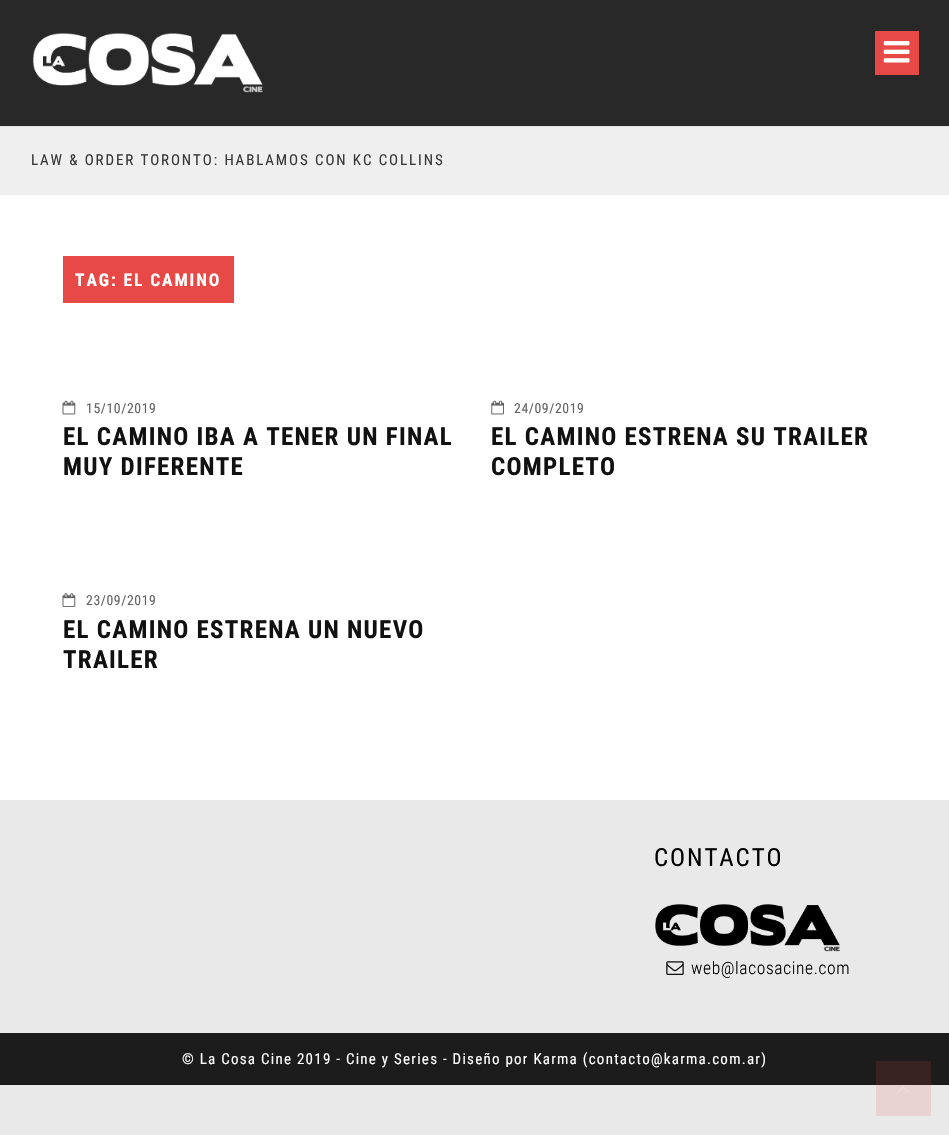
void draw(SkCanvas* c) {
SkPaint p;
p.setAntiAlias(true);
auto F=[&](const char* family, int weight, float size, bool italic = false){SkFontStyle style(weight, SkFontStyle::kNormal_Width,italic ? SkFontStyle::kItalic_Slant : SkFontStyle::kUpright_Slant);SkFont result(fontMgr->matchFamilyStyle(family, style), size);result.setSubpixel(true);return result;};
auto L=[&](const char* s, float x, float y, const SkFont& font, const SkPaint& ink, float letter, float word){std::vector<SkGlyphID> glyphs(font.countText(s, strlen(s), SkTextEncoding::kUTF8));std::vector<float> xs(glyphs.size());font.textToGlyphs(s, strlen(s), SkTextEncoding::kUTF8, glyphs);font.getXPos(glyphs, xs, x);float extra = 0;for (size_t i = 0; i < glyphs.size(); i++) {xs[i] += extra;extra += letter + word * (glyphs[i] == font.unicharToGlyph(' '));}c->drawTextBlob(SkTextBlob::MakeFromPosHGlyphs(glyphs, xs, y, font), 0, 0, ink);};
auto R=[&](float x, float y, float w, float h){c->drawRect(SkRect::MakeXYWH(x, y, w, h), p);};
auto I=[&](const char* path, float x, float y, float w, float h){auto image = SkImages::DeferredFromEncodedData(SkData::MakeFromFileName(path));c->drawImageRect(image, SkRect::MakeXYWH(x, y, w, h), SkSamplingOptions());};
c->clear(0xffe9e9e9);
p.setColor(0xffe9d3d2);
R(876,1085,55,31);
p.setColor(0xff282828);
R(0,0,949,126);
I("1.png",32,33,231,60);
p.setColor(0xffe64946);
R(875,31,44,44);
I("2.png",883,41,27,22);
p.setColor(0xffefefef);
R(0,127,949,68);
p.setColor(0xffe2e2e2);
R(0,126,949,1);
auto f1 = F("Roboto Condensed",400,15);
p.setColor(0xff373737);
L("LAW & ORDER TORONTO: HABLAMOS CON KC COLLINS",31,165,f1,p,1.9,0);
p.setColor(0xffffffff);
R(0,195,949,605);
p.setColor(0xffe64946);
R(63,256,171,47);
auto f2 = F("Roboto Condensed",700,17.5);
p.setColor(0xffffffff);
L("TAG: EL CAMINO",75,286,f2,p,1.9,0);
I("3.png",62,400,14,15);
auto f3 = F("Roboto Condensed",400,13.75);
p.setColor(0xff646464);
L("15/10/2019",86,413,f3,p,.6,0);
auto f4 = F("Roboto Condensed",700,25);
p.setColor(0xff111111);
L("EL CAMINO IBA A TENER UN FINAL",63,445,f4,p,1.25,0);
L("MUY DIFERENTE",63,475,f4,p,1.25,0);
I("4.png",491,400,13,15);
p.setColor(0xff646464);
L("24/09/2019",514,413,f3,p,.6,0);
p.setColor(0xff111111);
L("EL CAMINO ESTRENA SU TRAILER",491,445,f4,p,1.25,0);
L("COMPLETO",491,475,f4,p,1.25,0);
I("5.png",62,593,14,14);
p.setColor(0xff646464);
L("23/09/2019",86,605,f3,p,.6,0);
p.setColor(0xff111111);
L("EL CAMINO ESTRENA UN NUEVO",63,638,f4,p,1.25,0);
L("TRAILER",63,668,f4,p,1.25,0);
auto f5 = F("Roboto Condensed",400,25);
p.setColor(0xff000000);
L("CONTACTO",654,866,f5,p,1.9,0);
I("6.png",655,904,185,48);
I("7.png",666,961,18,14);
auto f6 = F("Roboto Condensed",300,17.5);
L("web@lacosacine.com",691,974,f6,p,.6,0);
p.setColor(0xff1c1c1c);
R(0,1033,949,52);
p.setColor(0xff382222);
R(876,1061,55,24);
p.setColor(0xffffffff);
L("© La Cosa Cine 2019 - Cine y Series - Diseño por Karma (contacto@karma.com.ar)",182,1064,f1,p,1.25,0);
I("8.png",896,1086,14,7);
}
